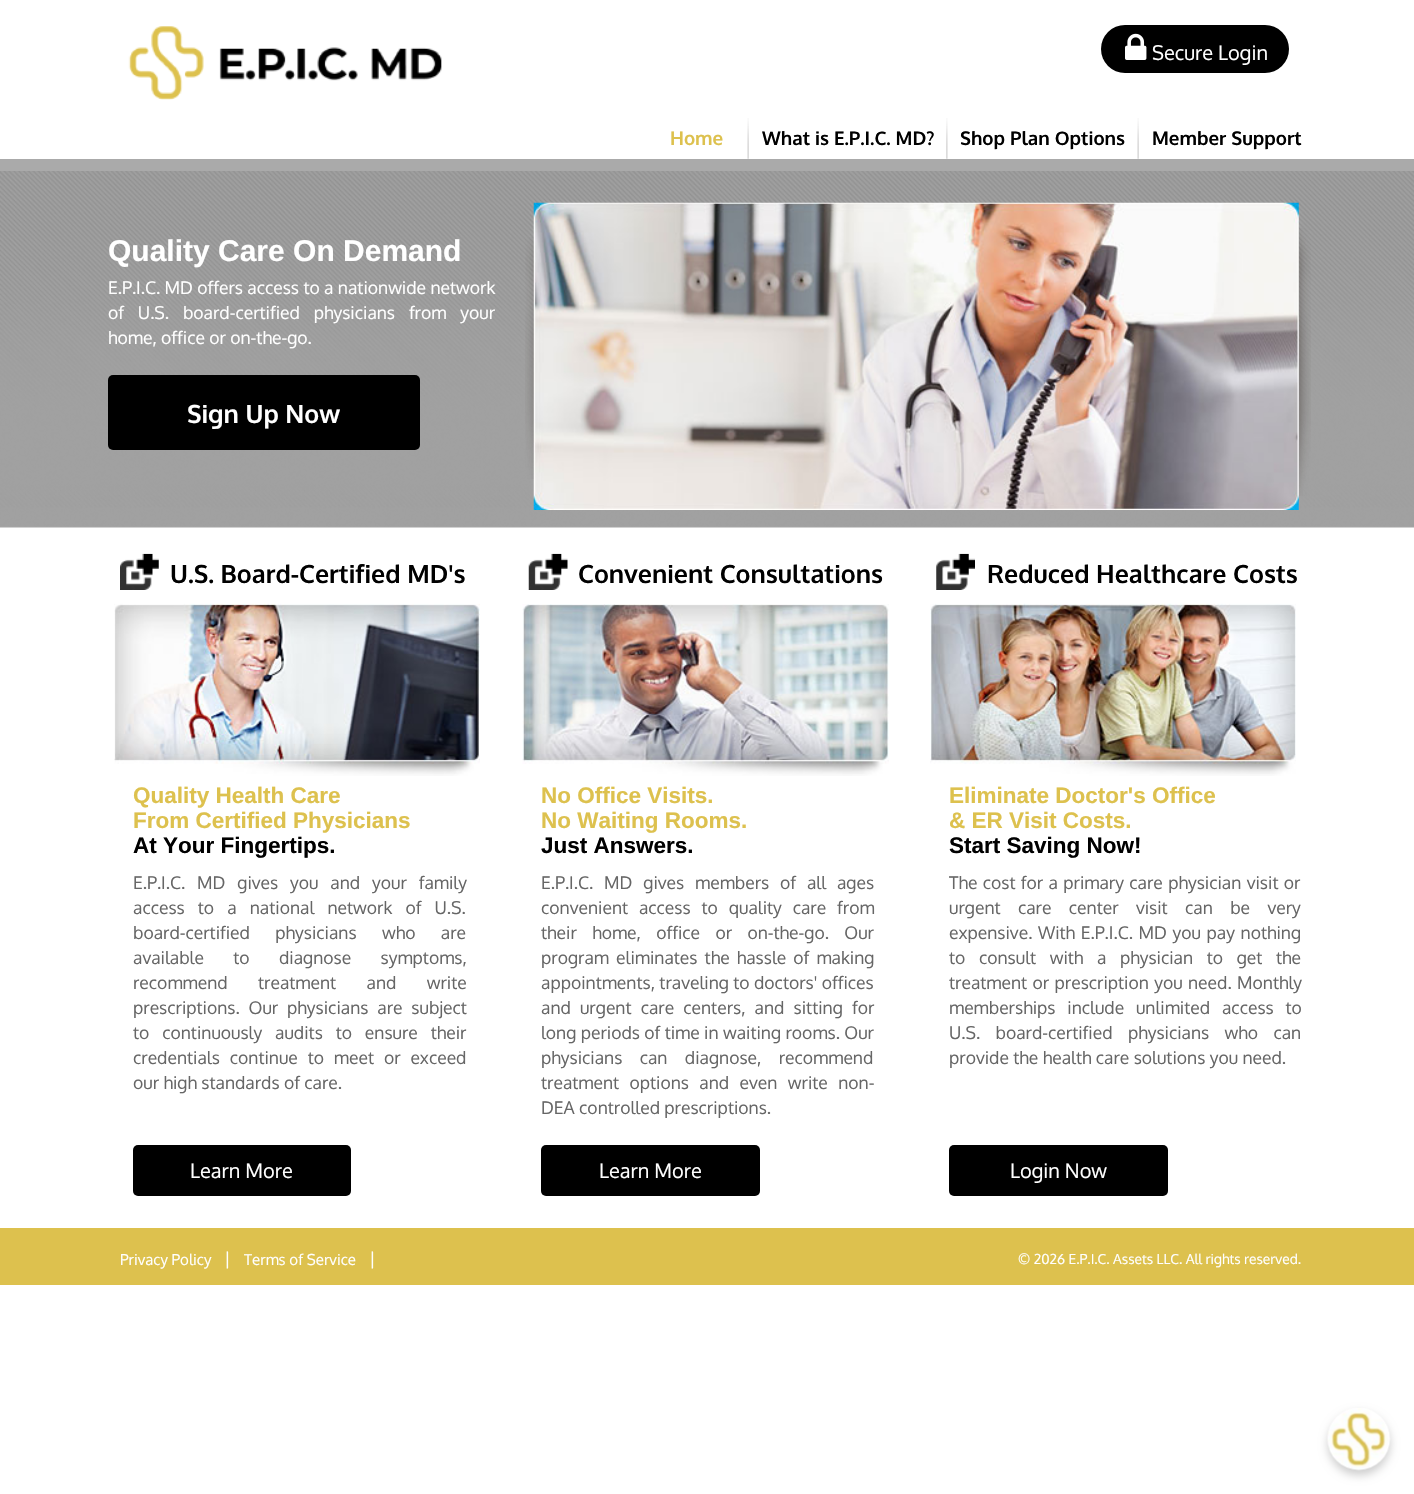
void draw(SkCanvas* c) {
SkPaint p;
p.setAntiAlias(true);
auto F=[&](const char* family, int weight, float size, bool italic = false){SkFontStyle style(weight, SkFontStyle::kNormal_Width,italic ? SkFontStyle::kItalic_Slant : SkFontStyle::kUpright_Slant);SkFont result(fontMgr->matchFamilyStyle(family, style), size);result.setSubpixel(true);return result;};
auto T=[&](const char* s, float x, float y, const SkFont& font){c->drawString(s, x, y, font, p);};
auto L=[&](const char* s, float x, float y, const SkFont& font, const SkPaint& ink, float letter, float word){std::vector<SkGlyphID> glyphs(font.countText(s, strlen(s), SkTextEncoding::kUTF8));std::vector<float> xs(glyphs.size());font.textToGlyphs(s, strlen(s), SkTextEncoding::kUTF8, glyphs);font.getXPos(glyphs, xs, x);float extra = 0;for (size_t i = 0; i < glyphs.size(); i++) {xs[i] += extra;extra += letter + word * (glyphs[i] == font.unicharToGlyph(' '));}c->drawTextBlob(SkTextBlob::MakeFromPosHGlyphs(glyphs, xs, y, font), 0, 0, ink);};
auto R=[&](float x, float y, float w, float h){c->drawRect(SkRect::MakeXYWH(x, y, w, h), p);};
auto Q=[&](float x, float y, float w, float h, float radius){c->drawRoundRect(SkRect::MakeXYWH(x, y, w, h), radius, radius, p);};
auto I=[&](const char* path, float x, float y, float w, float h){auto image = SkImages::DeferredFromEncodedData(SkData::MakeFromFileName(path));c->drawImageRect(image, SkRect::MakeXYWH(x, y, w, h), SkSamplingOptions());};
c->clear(0xffffffff);
I("1.png",0,171,1414,357);
I("2.png",128,26,314,74);
p.setColor(0xff000000);
Q(1101,25,188,48,24);
I("3.png",1125,33,22,27);
auto f1 = F("Oxygen",400,20);
p.setColor(0xffffffff);
T("Secure Login",1152,60,f1);
p.setColor(0xffaaaaaa);
R(0,159,1414,12);
auto f2 = F("Oxygen",700,18.75);
p.setColor(0xffddc14e);
T("Home",670,145,f2);
I("4.png",747,118,2,41);
p.setColor(0xff000000);
T("What is E.P.I.C. MD?",762,145,f2);
I("5.png",946,118,2,41);
T("Shop Plan Options",960,145,f2);
I("4.png",1137,118,2,41);
T("Member Support",1152,145,f2);
auto f3 = F("Liberation Sans",700,30);
p.setColor(0xffffffff);
T("Quality Care On Demand",108,261,f3);
auto f4 = F("Oxygen",400,17.5);
T("E.P.I.C. MD offers access to a nationwide network",108,294,f4);
L("of U.S. board-certified physicians from your",108,319,f4,p,0,9.5);
T("home, office or on-the-go.",108,344,f4);
p.setColor(0xff000000);
Q(108,375,312,75,5);
auto f5 = F("Oxygen",700,25);
p.setColor(0xffffffff);
T("Sign Up Now",187,423,f5);
I("8.png",1298,228,13,268);
I("7.png",533,202,766,308);
I("6.png",525,237,9,242);
I("9.png",120,553,39,37);
p.setColor(0xff000000);
T("U.S. Board-Certified MD's",170,583,f5);
I("10.png",114,603,366,173);
auto f6 = F("Liberation Sans",700,22.5);
p.setColor(0xffddc14e);
T("Quality Health Care",133,803,f6);
T("From Certified Physicians",133,828,f6);
p.setColor(0xff000000);
T("At Your Fingertips.",133,853,f6);
p.setColor(0xff666666);
L("E.P.I.C. MD gives you and your family",133,889,f4,p,0,7.5);
L("access to a national network of U.S.",133,914,f4,p,0,8.75);
L("board-certified physicians who are",133,939,f4,p,0,21);
L("available to diagnose symptoms,",133,964,f4,p,0,25);
L("recommend treatment and write",133,989,f4,p,0,26);
L("prescriptions. Our physicians are subject",133,1014,f4,p,0,4.5);
L("to continuously audits to ensure their",133,1039,f4,p,0,8.5);
L("credentials continue to meet or exceed",133,1064,f4,p,0,5.5);
T("our high standards of care.",133,1089,f4);
p.setColor(0xff000000);
Q(133,1145,218,51,5);
p.setColor(0xffffffff);
T("Learn More",190,1178,f1);
I("11.png",528,553,40,37);
p.setColor(0xff000000);
T("Convenient Consultations",578,583,f5);
I("12.png",522,604,367,172);
p.setColor(0xffddc14e);
T("No Office Visits.",541,803,f6);
T("No Waiting Rooms.",541,828,f6);
p.setColor(0xff000000);
T("Just Answers.",541,853,f6);
p.setColor(0xff666666);
L("E.P.I.C. MD gives members of all ages",541,889,f4,p,0,6.5);
L("convenient access to quality care from",541,914,f4,p,0,6.5);
L("their home, office or on-the-go. Our",541,939,f4,p,0,11);
L("program eliminates the hassle of making",541,964,f4,p,0,2.75);
T("appointments, traveling to doctors' offices",541,989,f4);
L("and urgent care centers, and sitting for",541,1014,f4,p,0,4.75);
T("long periods of time in waiting rooms. Our",541,1039,f4);
L("physicians can diagnose, recommend",541,1064,f4,p,0,13);
L("treatment options and even write non-",541,1089,f4,p,0,6);
T("DEA controlled prescriptions.",541,1114,f4);
p.setColor(0xff000000);
Q(541,1145,219,51,5);
p.setColor(0xffffffff);
T("Learn More",599,1178,f1);
I("13.png",936,553,39,37);
p.setColor(0xff000000);
T("Reduced Healthcare Costs",987,583,f5);
I("14.png",930,603,366,173);
p.setColor(0xffddc14e);
T("Eliminate Doctor's Office",949,803,f6);
T("& ER Visit Costs.",949,828,f6);
p.setColor(0xff000000);
T("Start Saving Now!",949,853,f6);
p.setColor(0xff666666);
L("The cost for a primary care physician visit or",949,889,f4,p,0,1);
L("urgent care center visit can be very",949,914,f4,p,0,13);
L("expensive. With E.P.I.C. MD you pay nothing",949,939,f4,p,0,1.25);
L("to consult with a physician to get the",949,964,f4,p,0,9.25);
L("treatment or prescription you need. Monthly",949,989,f4,p,0,1);
L("memberships include unlimited access to",949,1014,f4,p,0,7.5);
L("U.S. board-certified physicians who can",949,1039,f4,p,0,11);
T("provide the health care solutions you need.",949,1064,f4);
p.setColor(0xff000000);
Q(949,1145,219,51,5);
p.setColor(0xffffffff);
T("Login Now",1010,1178,f1);
p.setColor(0xffddc14e);
R(0,1228,1414,57);
auto f7 = F("Oxygen",400,15);
p.setColor(0xffffffff);
T("Privacy Policy",120,1265,f7);
T("|",224,1265,f4);
T("Terms of Service",244,1265,f7);
T("|",369,1265,f4);
auto f8 = F("Oxygen",400,13.75);
T("© 2026 E.P.I.C. Assets LLC. All rights reserved.",1018,1264,f8);
p.setColor(0x33000000);
p.setMaskFilter(SkMaskFilter::MakeBlur(kNormal_SkBlurStyle, 5));
c->drawRoundRect(SkRect::MakeXYWH(1328,1413,62,62),31,31,p);
p.setMaskFilter(nullptr);
I("15.png",1327,1408,64,63);
}
